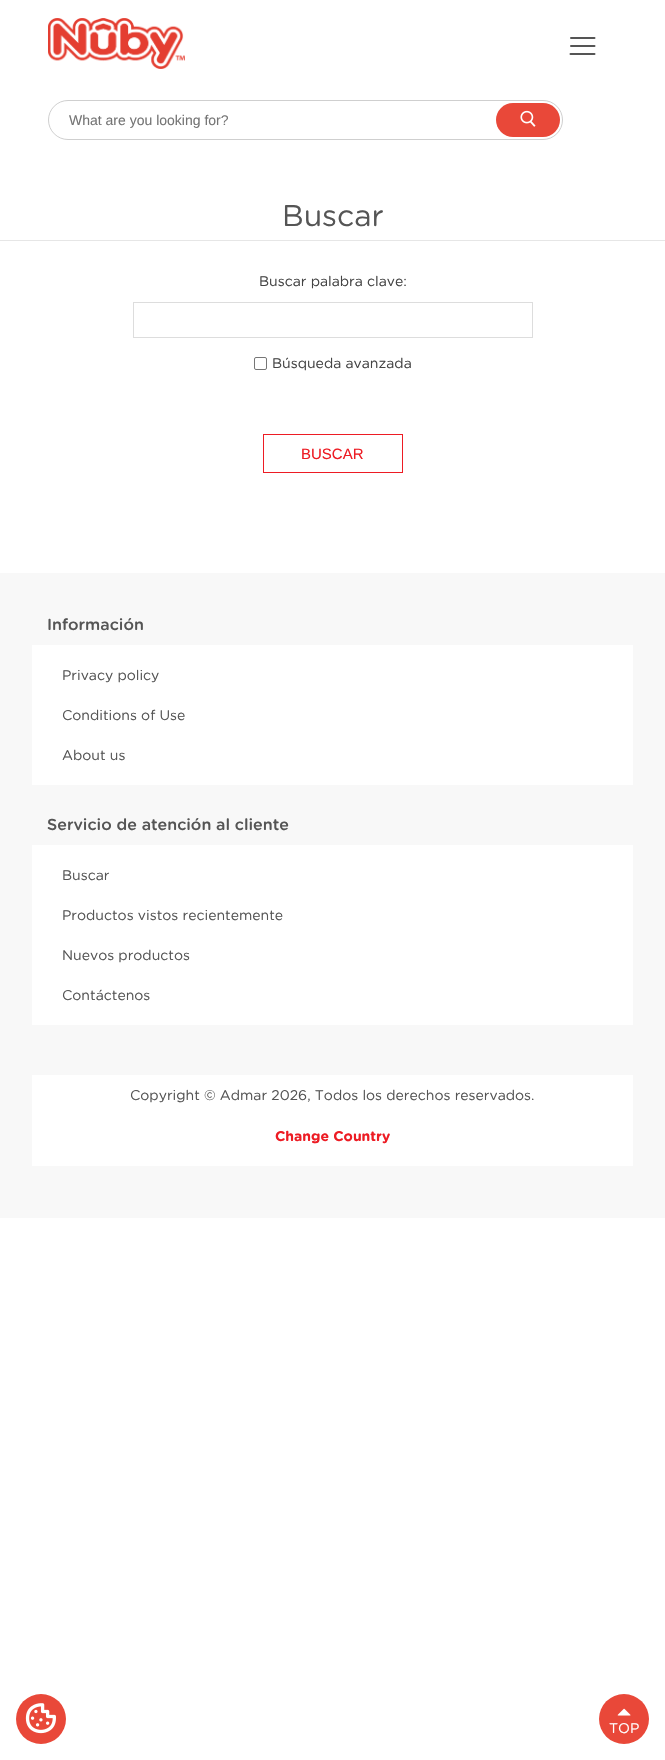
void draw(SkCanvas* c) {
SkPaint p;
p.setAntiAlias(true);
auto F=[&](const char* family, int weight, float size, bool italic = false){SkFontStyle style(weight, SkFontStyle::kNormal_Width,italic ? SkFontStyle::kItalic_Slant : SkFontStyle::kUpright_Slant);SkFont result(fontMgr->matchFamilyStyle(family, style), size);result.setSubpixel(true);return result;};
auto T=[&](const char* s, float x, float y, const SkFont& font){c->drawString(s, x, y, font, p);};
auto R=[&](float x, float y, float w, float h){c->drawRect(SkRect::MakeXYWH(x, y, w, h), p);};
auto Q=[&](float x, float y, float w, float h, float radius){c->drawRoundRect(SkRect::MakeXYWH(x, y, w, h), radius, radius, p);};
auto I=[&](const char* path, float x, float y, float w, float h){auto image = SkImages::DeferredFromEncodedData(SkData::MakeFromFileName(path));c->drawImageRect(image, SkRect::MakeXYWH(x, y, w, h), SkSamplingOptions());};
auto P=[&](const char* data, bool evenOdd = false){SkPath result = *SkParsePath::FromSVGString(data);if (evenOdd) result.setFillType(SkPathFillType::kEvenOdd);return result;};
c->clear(0xffffffff);
I("1.png",48,18,137,51);
p.setStroke(true);
p.setStrokeWidth(2);
p.setStrokeCap(SkPaint::kRound_Cap);
p.setColor(0xff555555);
c->drawPath(P("M570.5 54h24m-23.5-8h23.5m-23.5-8h23.5"),p);
p.setStrokeWidth(1);
p.setStrokeCap(SkPaint::kButt_Cap);
p.setColor(0xffcfcfcf);
c->drawRoundRect(SkRect::MakeXYWH(48.5,100.5,514,39),19.5,19.5,p);
auto f1 = F("Liberation Sans",400,14);
p.setStroke(false);
p.setColor(0xff757575);
T("What are you looking for?",69,125,f1);
p.setColor(0xffe94839);
Q(496,103,64,34,17);
I("2.png",520,110,16,17);
auto f2 = F("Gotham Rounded",400,30);
p.setColor(0xff555555);
T("Buscar",282,226,f2);
p.setColor(0xffe6e6e6);
R(0,240,665,1);
auto f3 = F("Gotham Rounded",400,14);
p.setColor(0xff444444);
T("Buscar palabra clave:",259,286,f3);
p.setStroke(true);
p.setColor(0xffdddddd);
c->drawRect(SkRect::MakeXYWH(133.5,302.5,399,35),p);
p.setColor(0xff767676);
c->drawRoundRect(SkRect::MakeXYWH(254.5,357.5,12,12),1.5,1.5,p);
p.setStroke(false);
p.setColor(0xff444444);
T("Búsqueda avanzada",272,368,f3);
p.setStroke(true);
p.setColor(0xffed1c24);
c->drawRect(SkRect::MakeXYWH(263.5,434.5,139,38),p);
auto f4 = F("Liberation Sans",400,15);
p.setStroke(false);
T("BUSCAR",301,459,f4);
p.setColor(0xfff8f8f8);
R(0,573,665,645);
auto f5 = F("Gotham Rounded",500,16);
p.setColor(0xff555555);
T("Información",47,630,f5);
p.setColor(0xffffffff);
R(32,645,601,140);
p.setColor(0xff555555);
T("Privacy policy",62,680,f3);
T("Conditions of Use",62,720,f3);
T("About us",62,760,f3);
T("Servicio de atención al cliente",47,830,f5);
p.setColor(0xffffffff);
R(32,845,601,180);
p.setColor(0xff555555);
T("Buscar",62,880,f3);
T("Productos vistos recientemente",62,920,f3);
T("Nuevos productos",62,960,f3);
T("Contáctenos",62,1000,f3);
p.setColor(0xffffffff);
R(32,1075,601,91);
p.setColor(0xff555555);
T("Copyright © Admar 2026, Todos los derechos reservados.",130,1100,f3);
auto f6 = F("Gotham Rounded",700,14);
p.setColor(0xffed1c24);
T("Change Country",275,1141,f6);
p.setColor(0xffe94839);
c->drawCircle(41,1719,25,p);
I("3.png",25,1703,31,31);
c->drawCircle(624,1719,25,p);
I("4.png",617,1708,14,8);
p.setColor(0xffffffff);
T("TOP",609,1733,f3);
}
